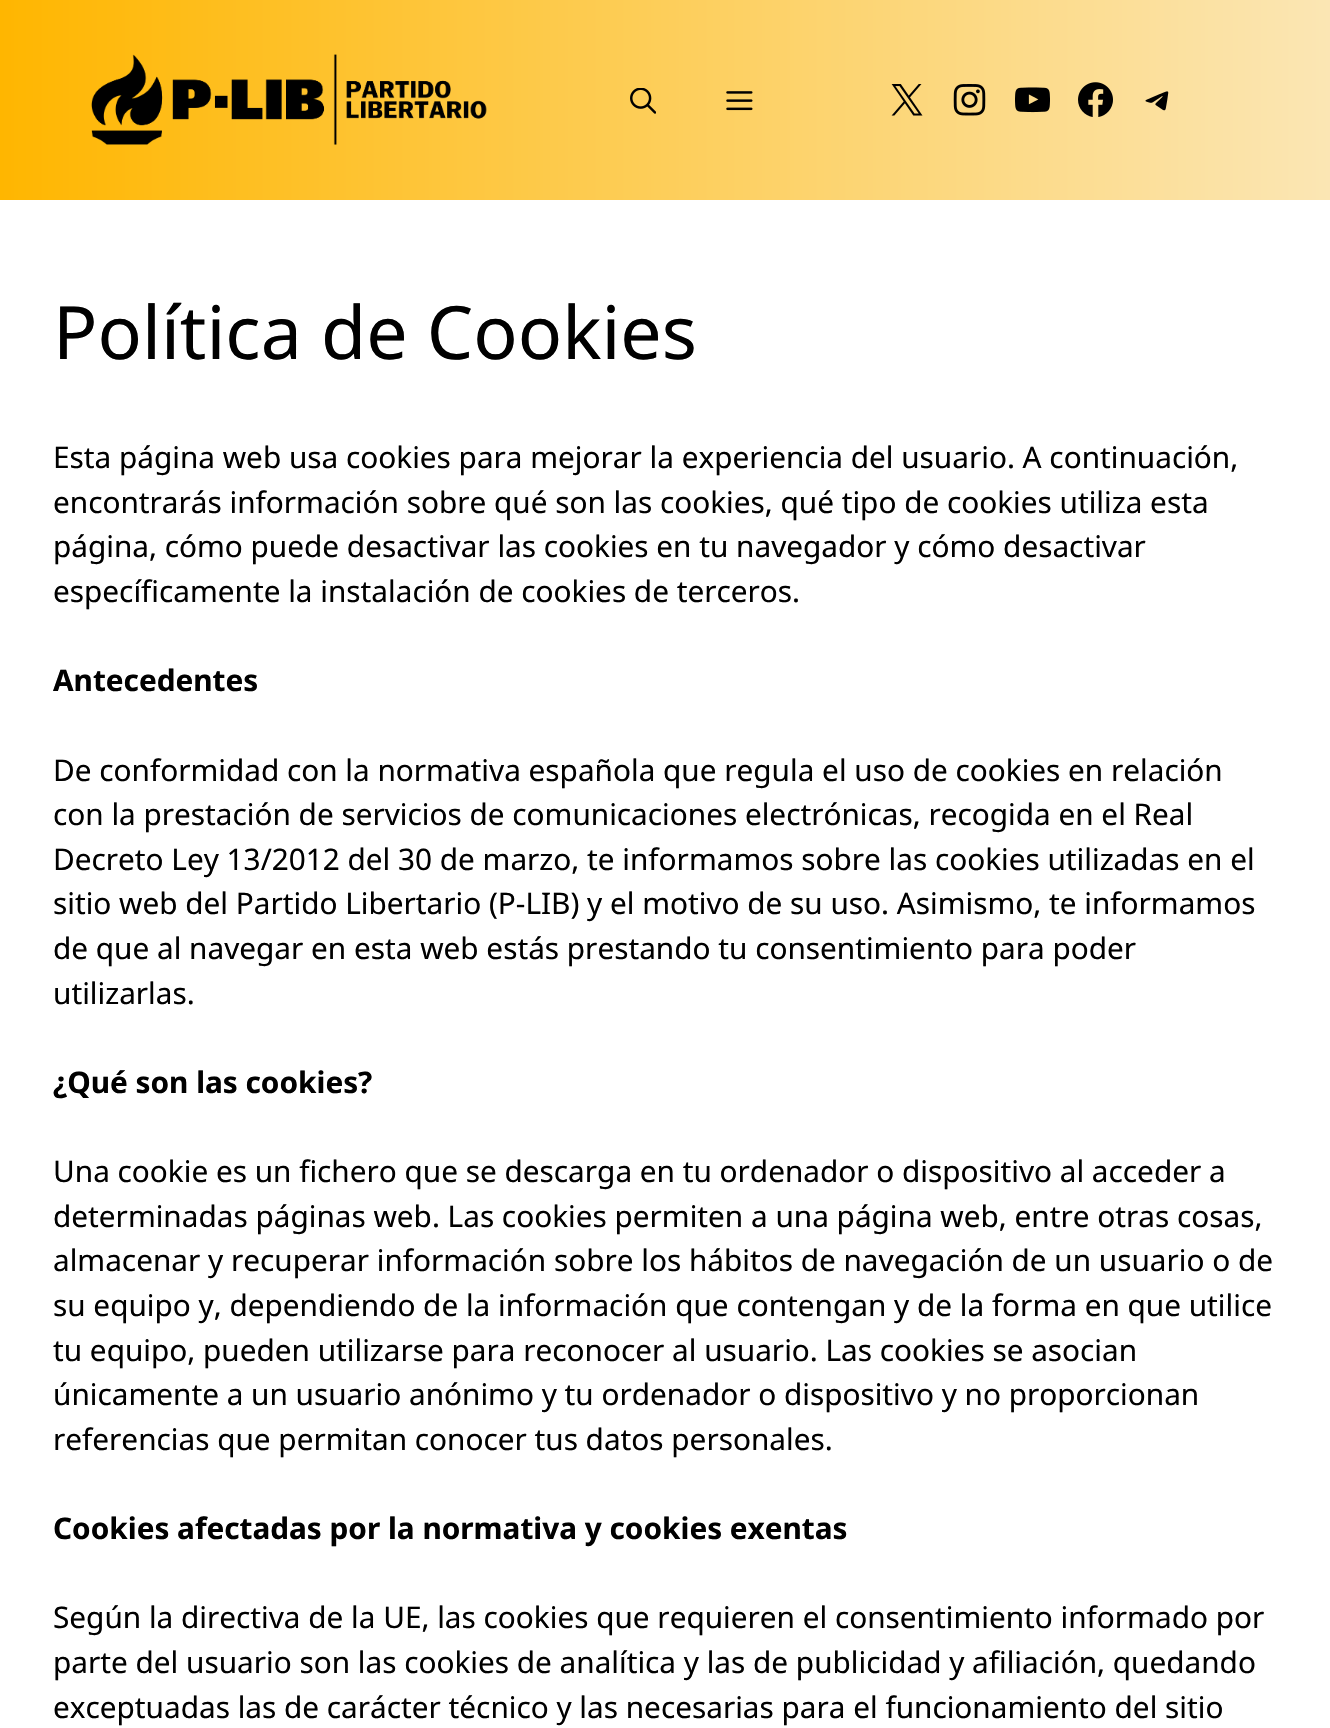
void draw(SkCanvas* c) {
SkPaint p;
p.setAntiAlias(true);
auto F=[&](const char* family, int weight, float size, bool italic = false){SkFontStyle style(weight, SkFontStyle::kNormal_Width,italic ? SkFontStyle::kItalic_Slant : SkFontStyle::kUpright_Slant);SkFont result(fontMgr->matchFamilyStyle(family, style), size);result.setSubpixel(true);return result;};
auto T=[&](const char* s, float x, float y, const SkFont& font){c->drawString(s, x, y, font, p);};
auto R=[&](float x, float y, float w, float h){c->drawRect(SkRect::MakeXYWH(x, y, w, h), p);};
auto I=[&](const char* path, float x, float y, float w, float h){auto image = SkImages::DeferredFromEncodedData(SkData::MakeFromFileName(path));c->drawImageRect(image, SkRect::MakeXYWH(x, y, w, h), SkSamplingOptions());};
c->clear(0xffffffff);
{
const SkColor colors[] = {0xffffb600,0xfffbe6b4};
const float stops[] = {0,1};
const SkPoint ends[] = {{0,100}, {1330,100}};
p.setShader(SkGradientShader::MakeLinear(ends, colors, stops, 2, SkTileMode::kClamp));
p.setAlpha(255);
}
R(0,0,1330,200);
I("1.png",91,54,396,91);
I("2.png",630,88,26,26);
I("3.png",726,91,27,20);
I("4.png",891,84,32,32);
I("5.png",953,84,33,32);
I("6.png",1015,87,35,26);
I("7.png",1078,82,35,35);
I("8.png",1145,91,24,20);
auto f1 = F("Noto Sans",400,73.5);
p.setShader(nullptr);
p.setColor(0xff000000);
T("Política de Cookies",53,359,f1);
auto f2 = F("Noto Sans",400,29.75);
T("Esta página web usa cookies para mejorar la experiencia del usuario. A continuación,",53,468,f2);
T("encontrarás información sobre qué son las cookies, qué tipo de cookies utiliza esta",53,513,f2);
T("página, cómo puede desactivar las cookies en tu navegador y cómo desactivar",53,557,f2);
T("específicamente la instalación de cookies de terceros.",53,602,f2);
auto f3 = F("Noto Sans",700,29.75);
T("Antecedentes",53,691,f3);
T("De conformidad con la normativa española que regula el uso de cookies en relación",53,781,f2);
T("con la prestación de servicios de comunicaciones electrónicas, recogida en el Real",53,825,f2);
T("Decreto Ley 13/2012 del 30 de marzo, te informamos sobre las cookies utilizadas en el",53,870,f2);
T("sitio web del Partido Libertario (P-LIB) y el motivo de su uso. Asimismo, te informamos",53,914,f2);
T("de que al navegar en esta web estás prestando tu consentimiento para poder",53,959,f2);
T("utilizarlas.",53,1004,f2);
T("¿Qué son las cookies?",53,1093,f3);
T("Una cookie es un fichero que se descarga en tu ordenador o dispositivo al acceder a",53,1182,f2);
T("determinadas páginas web. Las cookies permiten a una página web, entre otras cosas,",53,1227,f2);
T("almacenar y recuperar información sobre los hábitos de navegación de un usuario o de",53,1271,f2);
T("su equipo y, dependiendo de la información que contengan y de la forma en que utilice",53,1316,f2);
T("tu equipo, pueden utilizarse para reconocer al usuario. Las cookies se asocian",53,1361,f2);
T("únicamente a un usuario anónimo y tu ordenador o dispositivo y no proporcionan",53,1405,f2);
T("referencias que permitan conocer tus datos personales.",53,1450,f2);
T("Cookies afectadas por la normativa y cookies exentas",53,1539,f3);
T("Según la directiva de la UE, las cookies que requieren el consentimiento informado por",53,1628,f2);
T("parte del usuario son las cookies de analítica y las de publicidad y afiliación, quedando",53,1673,f2);
T("exceptuadas las de carácter técnico y las necesarias para el funcionamiento del sitio",53,1718,f2);
}
